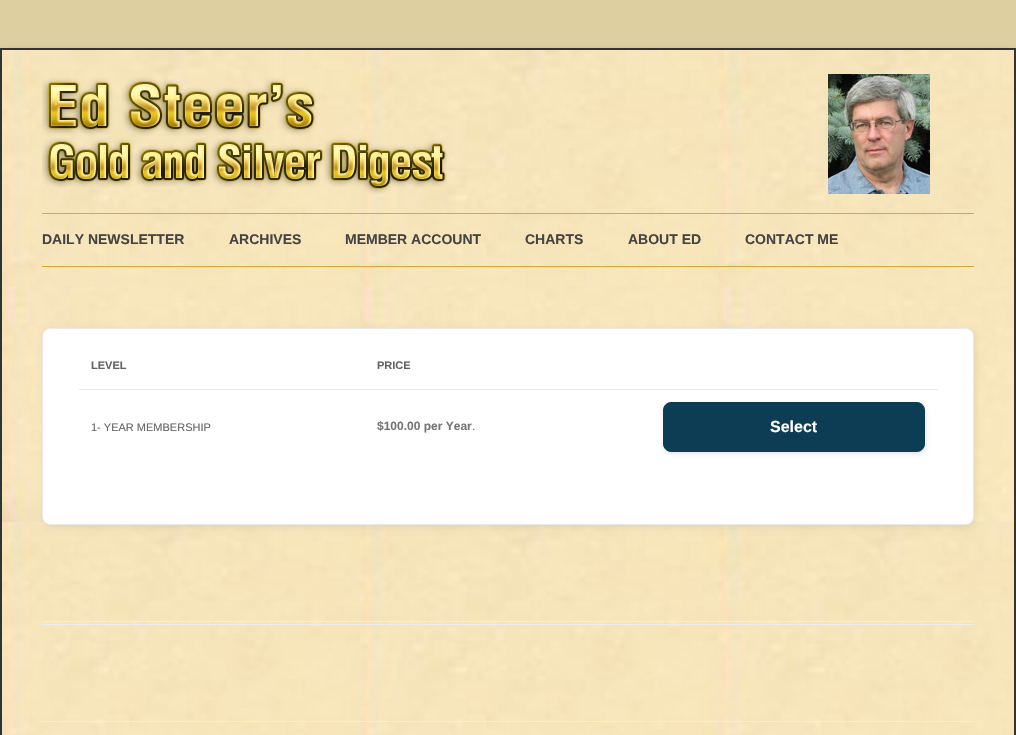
void draw(SkCanvas* c) {
SkPaint p;
p.setAntiAlias(true);
auto F=[&](const char* family, int weight, float size, bool italic = false){SkFontStyle style(weight, SkFontStyle::kNormal_Width,italic ? SkFontStyle::kItalic_Slant : SkFontStyle::kUpright_Slant);SkFont result(fontMgr->matchFamilyStyle(family, style), size);result.setSubpixel(true);return result;};
auto T=[&](const char* s, float x, float y, const SkFont& font){c->drawString(s, x, y, font, p);};
auto R=[&](float x, float y, float w, float h){c->drawRect(SkRect::MakeXYWH(x, y, w, h), p);};
auto I=[&](const char* path, float x, float y, float w, float h){auto image = SkImages::DeferredFromEncodedData(SkData::MakeFromFileName(path));c->drawImageRect(image, SkRect::MakeXYWH(x, y, w, h), SkSamplingOptions());};
c->clear(0xffddcf9f);
p.setColor(0x4d646464);
p.setMaskFilter(SkMaskFilter::MakeBlur(kNormal_SkBlurStyle, 3));
c->drawRect(SkRect::MakeXYWH(0,50,1016,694),p);
p.setMaskFilter(nullptr);
I("1.png",2,50,1012,685);
p.setStroke(true);
p.setStrokeWidth(2);
p.setColor(0xff333333);
c->drawRect(SkRect::MakeXYWH(1,49,1014,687),p);
I("2.png",42,74,888,120);
p.setStroke(false);
p.setColor(0xffdba737);
R(42,213,932,1);
R(42,266,932,1);
auto f1 = F("Liberation Sans",700,14);
p.setColor(0xff444444);
T("DAILY NEWSLETTER",42,244,f1);
T("ARCHIVES",229,244,f1);
T("MEMBER ACCOUNT",345,244,f1);
T("CHARTS",525,244,f1);
T("ABOUT ED",628,244,f1);
T("CONTACT ME",745,244,f1);
p.setColor(0xffededed);
R(42,621,932,1);
R(42,624,932,1);
p.setColor(0x12000000);
p.setMaskFilter(SkMaskFilter::MakeBlur(kNormal_SkBlurStyle, 3.5));
c->drawRoundRect(SkRect::MakeXYWH(44,330,932,197),8,8,p);
p.setMaskFilter(nullptr);
p.setColor(0xffffffff);
c->drawRoundRect(SkRect::MakeXYWH(42.5,328.5,931,196),7.5,7.5,p);
p.setStroke(true);
p.setStrokeWidth(1);
p.setColor(0xffe8e8e8);
c->drawRoundRect(SkRect::MakeXYWH(42.5,328.5,931,196),7.5,7.5,p);
auto f2 = F("Liberation Sans",700,11);
p.setStroke(false);
p.setColor(0xff636363);
T("LEVEL",91,369,f2);
T("PRICE",377,369,f2);
auto f3 = F("Liberation Sans",400,11);
T("1- YEAR MEMBERSHIP",91,431,f3);
auto f4 = F("Liberation Sans",700,12);
p.setColor(0xff757575);
T("$100.00 per Year",377,430,f4);
auto f5 = F("Liberation Sans",400,12);
T(".",472,430,f5);
p.setColor(0xffe8e8e8);
R(79,389,859,1);
p.setColor(0x1a000000);
p.setMaskFilter(SkMaskFilter::MakeBlur(kNormal_SkBlurStyle, 2));
c->drawRoundRect(SkRect::MakeXYWH(664,404,262,50),8,8,p);
p.setMaskFilter(nullptr);
p.setColor(0xff0c3d54);
c->drawRoundRect(SkRect::MakeXYWH(663.5,402.5,261,49),7.5,7.5,p);
p.setStroke(true);
c->drawRoundRect(SkRect::MakeXYWH(663.5,402.5,261,49),7.5,7.5,p);
auto f6 = F("Liberation Sans",700,16);
p.setStroke(false);
p.setColor(0xffffffff);
T("Select",770,432,f6);
p.setColor(0xffededed);
R(42,721,932,1);
}
